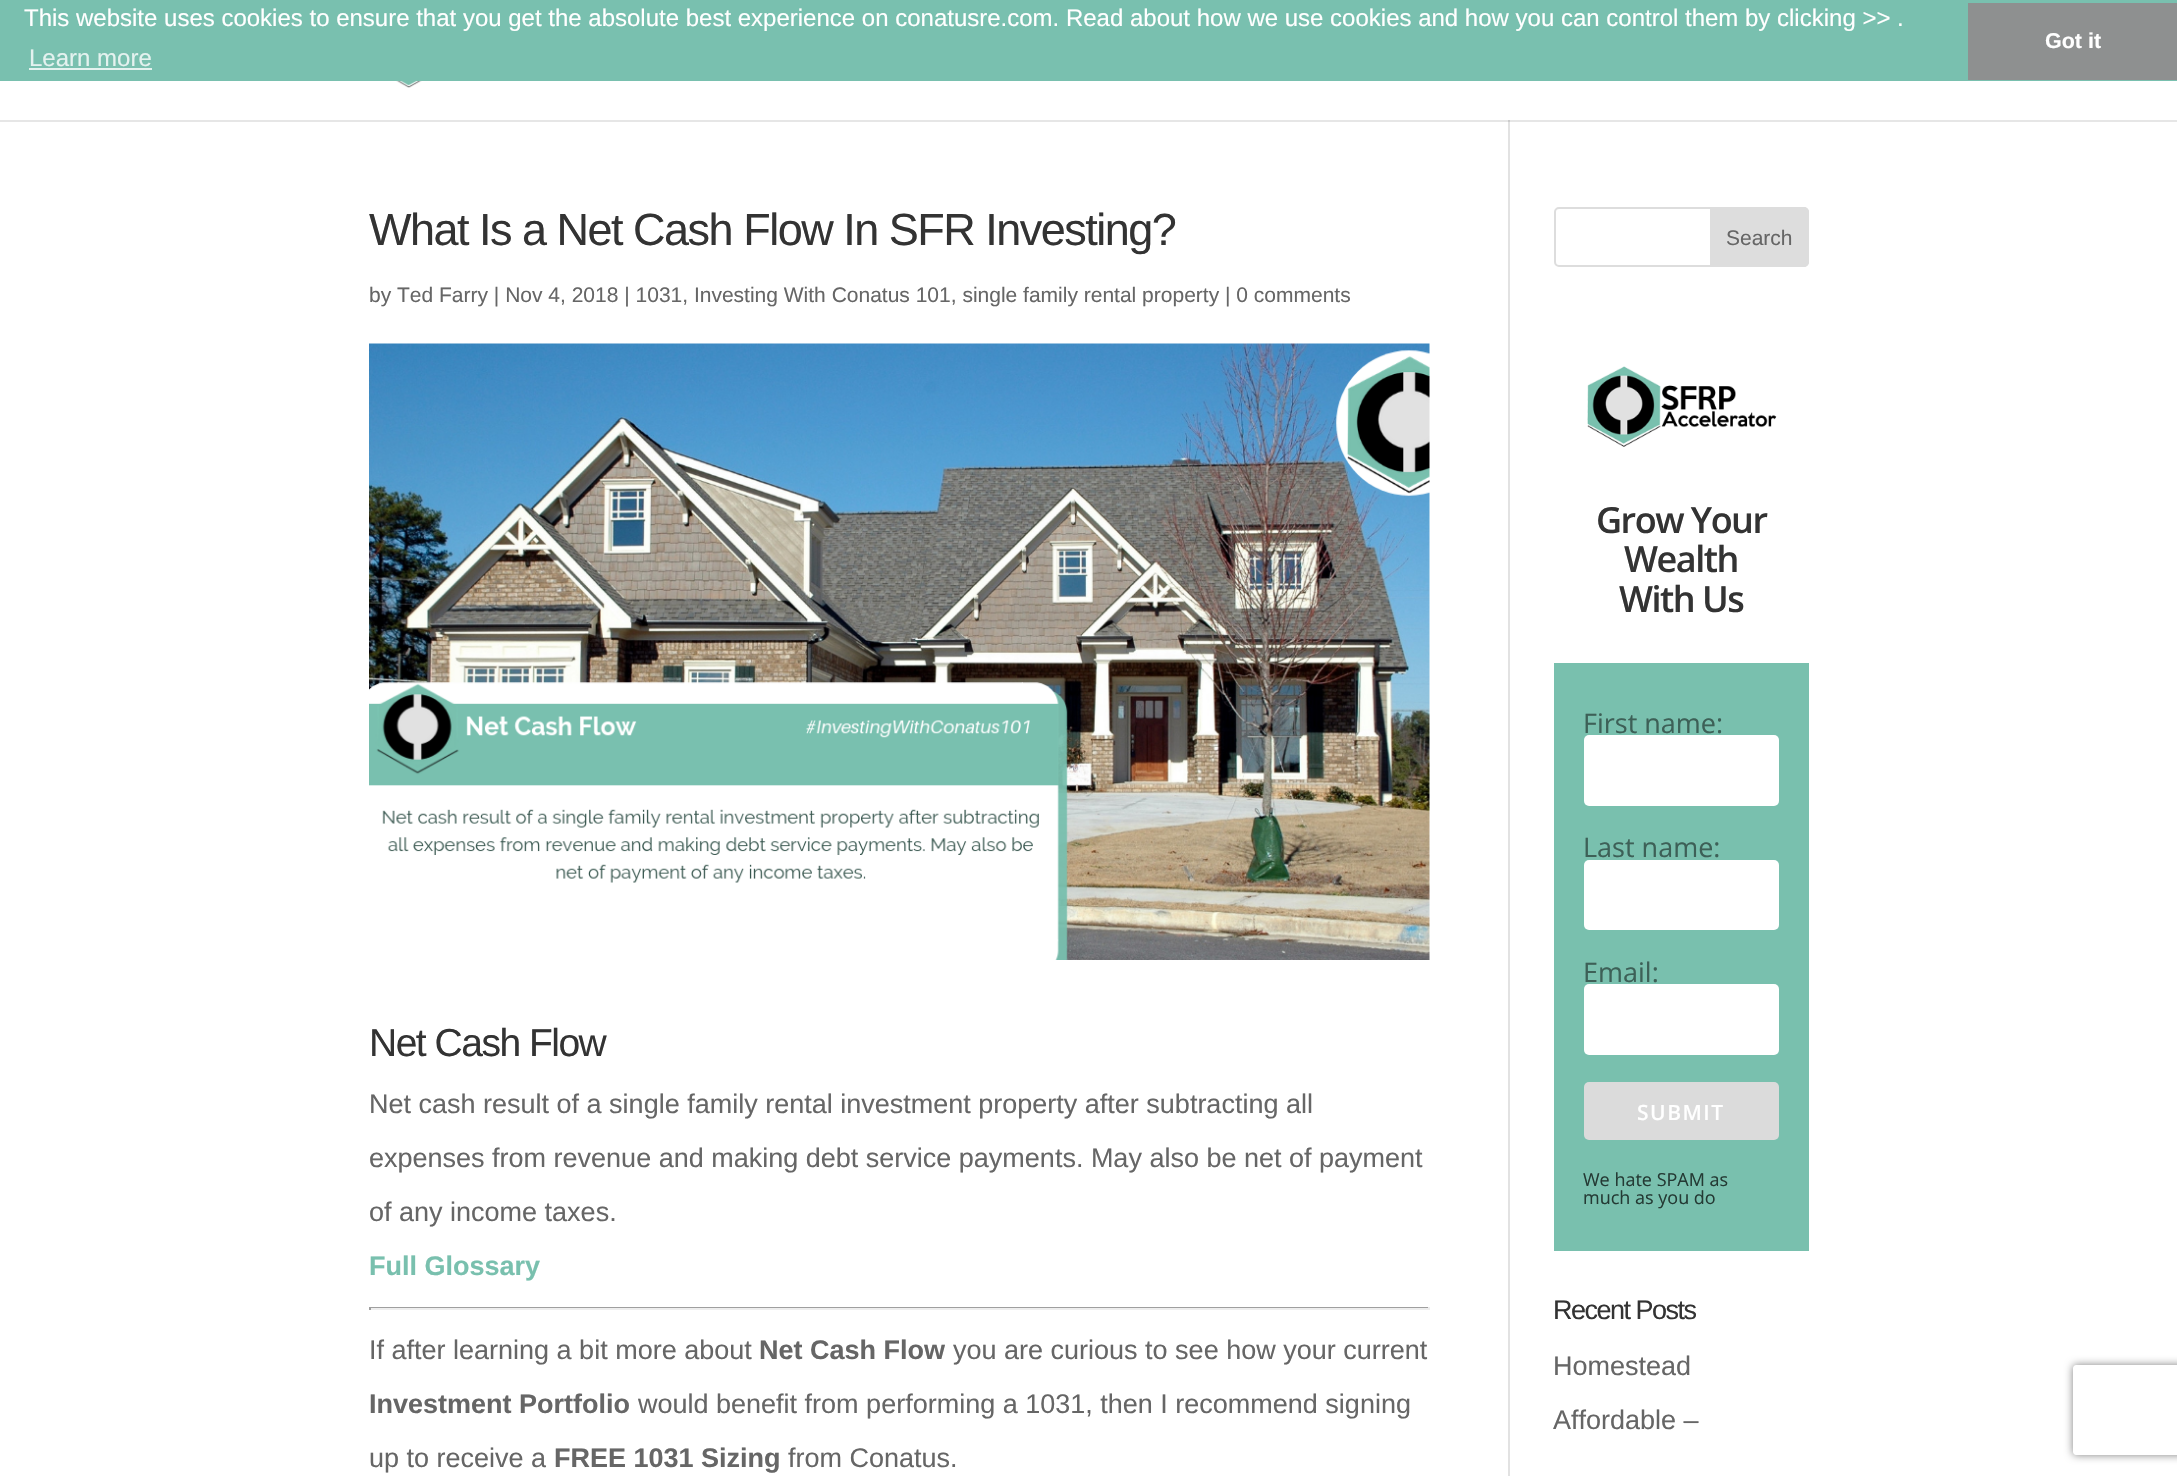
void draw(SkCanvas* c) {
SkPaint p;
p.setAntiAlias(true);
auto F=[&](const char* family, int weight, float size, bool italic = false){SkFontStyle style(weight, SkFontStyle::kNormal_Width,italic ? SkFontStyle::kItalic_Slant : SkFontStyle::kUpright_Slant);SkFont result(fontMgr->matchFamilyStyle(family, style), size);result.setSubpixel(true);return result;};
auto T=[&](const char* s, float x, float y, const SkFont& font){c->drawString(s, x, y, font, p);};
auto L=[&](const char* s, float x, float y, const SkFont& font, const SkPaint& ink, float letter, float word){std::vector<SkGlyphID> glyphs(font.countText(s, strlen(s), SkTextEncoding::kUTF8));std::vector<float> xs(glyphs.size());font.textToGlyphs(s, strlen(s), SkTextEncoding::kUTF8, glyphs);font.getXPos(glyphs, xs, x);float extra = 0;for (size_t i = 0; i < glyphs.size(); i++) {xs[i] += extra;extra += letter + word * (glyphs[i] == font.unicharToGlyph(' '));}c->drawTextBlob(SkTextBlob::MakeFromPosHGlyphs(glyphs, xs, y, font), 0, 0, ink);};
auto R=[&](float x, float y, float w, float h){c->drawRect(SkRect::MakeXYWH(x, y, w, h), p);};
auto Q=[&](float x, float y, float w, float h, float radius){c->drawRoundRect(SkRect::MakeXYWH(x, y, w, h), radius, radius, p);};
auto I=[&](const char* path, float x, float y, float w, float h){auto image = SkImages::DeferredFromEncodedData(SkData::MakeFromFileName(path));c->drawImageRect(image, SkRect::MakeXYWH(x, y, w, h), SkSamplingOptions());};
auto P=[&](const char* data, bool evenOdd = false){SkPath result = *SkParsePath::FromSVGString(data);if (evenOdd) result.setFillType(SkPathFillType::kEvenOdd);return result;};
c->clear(0xffffffff);
p.setColor(0xffe6e6e6);
R(0,120,2177,2);
p.setColor(0xff79c0af);
R(0,0,2177,81);
auto f1 = F("Liberation Sans",400,24);
p.setColor(0xffffffff);
T("This website uses cookies to ensure that you get the absolute best experience on conatusre.com. Read about how we use cookies and how you can control them by clicking >> .",24,26,f1);
p.setColor(0xffe4f2ef);
T("Learn more",29,66,f1);
R(29,68,123,2);
p.setColor(0xff8e9090);
R(1968,3,209,77);
auto f2 = F("Liberation Sans",700,21.5);
p.setColor(0xffffffff);
T("Got it",2045,48,f2);
I("1.png",396,81,26,7);
p.setColor(0xffe2e2e2);
R(1508,120,2,1356);
p.setColor(0xffcbcbcb);
R(1508,120,2,2);
auto f3 = F("Liberation Sans",400,45);
p.setColor(0xff333333);
L("What Is a Net Cash Flow In SFR Investing?",369,245,f3,p,-1.5,0);
auto f4 = F("Liberation Sans",400,21);
p.setColor(0xff666666);
T("by Ted Farry | Nov 4, 2018 | 1031, Investing With Conatus 101, single family rental property | 0 comments",369,302,f4);
I("2.png",369,343,1061,617);
auto f5 = F("Liberation Sans",400,39);
p.setColor(0xff333333);
L("Net Cash Flow",369,1056,f5,p,-1.5,0);
auto f6 = F("Liberation Sans",400,27);
p.setColor(0xff666666);
T("Net cash result of a single family rental investment property after subtracting all",369,1113,f6);
T("expenses from revenue and making debt service payments. May also be net of payment",369,1167,f6);
T("of any income taxes.",369,1221,f6);
auto f7 = F("Liberation Sans",700,27);
p.setColor(0xff79c0ae);
T("Full Glossary",369,1275,f7);
p.setColor(0xff9f9f9f);
R(369,1307,1061,1);
p.setColor(0xffeeeeee);
R(1428,1307,2,3);
R(369,1308,1061,2);
p.setColor(0xff9f9f9f);
R(369,1307,2,3);
p.setColor(0xff666666);
T("If after learning a bit more about",369,1359,f6);
T("Net Cash Flow",759,1359,f7);
T("you are curious to see how your current",953,1359,f6);
T("Investment Portfolio",369,1413,f7);
T("would benefit from performing a 1031, then I recommend signing",638,1413,f6);
T("up to receive a",369,1467,f6);
T("FREE 1031 Sizing",554,1467,f7);
T("from Conatus.",788,1467,f6);
c->save();
c->clipPath(P("M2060 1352h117v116h-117zm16 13h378c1.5 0 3 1.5 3 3v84c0 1.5-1.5 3-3 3h-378c-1.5 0-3-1.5-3-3v-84c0-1.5 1.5-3 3-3z",true),true);
p.setColor(0xff808080);
p.setMaskFilter(SkMaskFilter::MakeBlur(kNormal_SkBlurStyle, 4));
c->drawRoundRect(SkRect::MakeXYWH(2073,1365,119,90),3,3,p);
p.setMaskFilter(nullptr);
c->restore();
p.setStroke(true);
p.setStrokeWidth(2);
p.setColor(0xffdddddd);
c->drawRoundRect(SkRect::MakeXYWH(1555,208,253,58),4,4,p);
p.setStroke(false);
c->drawPath(P("M1711 208h93c2 0 4 2 4 4v50c0 2-2 4-4 4h-93z"),p);
p.setStroke(true);
c->drawPath(P("M1711 208h93c2 0 4 2 4 4v50c0 2-2 4-4 4h-93z"),p);
p.setStroke(false);
p.setColor(0xff666666);
T("Search",1726,245,f4);
I("3.png",1587,366,190,81);
auto f8 = F("Open Sans",600,36);
p.setColor(0xff333333);
L("Grow Your",1596,533,f8,p,-1.5,0);
L("Wealth",1624,572,f8,p,-1.5,0);
L("With Us",1619,612,f8,p,-1.5,0);
p.setColor(0xff79c0ae);
R(1554,663,255,588);
auto f9 = F("Open Sans",400,27);
p.setColor(0xff3d6057);
T("First name:",1583,733,f9);
p.setColor(0xffffffff);
Q(1584,735,195,71,5);
p.setColor(0xff3d6057);
T("Last name:",1583,857,f9);
p.setColor(0xffffffff);
Q(1584,860,195,70,5);
p.setColor(0xff3d6057);
T("Email:",1583,982,f9);
p.setColor(0xffffffff);
Q(1584,984,195,71,5);
p.setColor(0xffdbdbdb);
Q(1584,1082,195,58,5);
auto f10 = F("Open Sans",600,21);
p.setColor(0xffffffff);
L("SUBMIT",1637,1120,f10,p,1.5,0);
auto f11 = F("Open Sans",400,18);
p.setColor(0xff243a34);
T("We hate SPAM as",1583,1186,f11);
T("much as you do",1583,1204,f11);
p.setColor(0xff333333);
L("Recent Posts",1553,1319,f6,p,-1.5,0);
p.setColor(0xff666666);
T("Homestead",1553,1375,f6);
T("Affordable –",1553,1429,f6);
}
